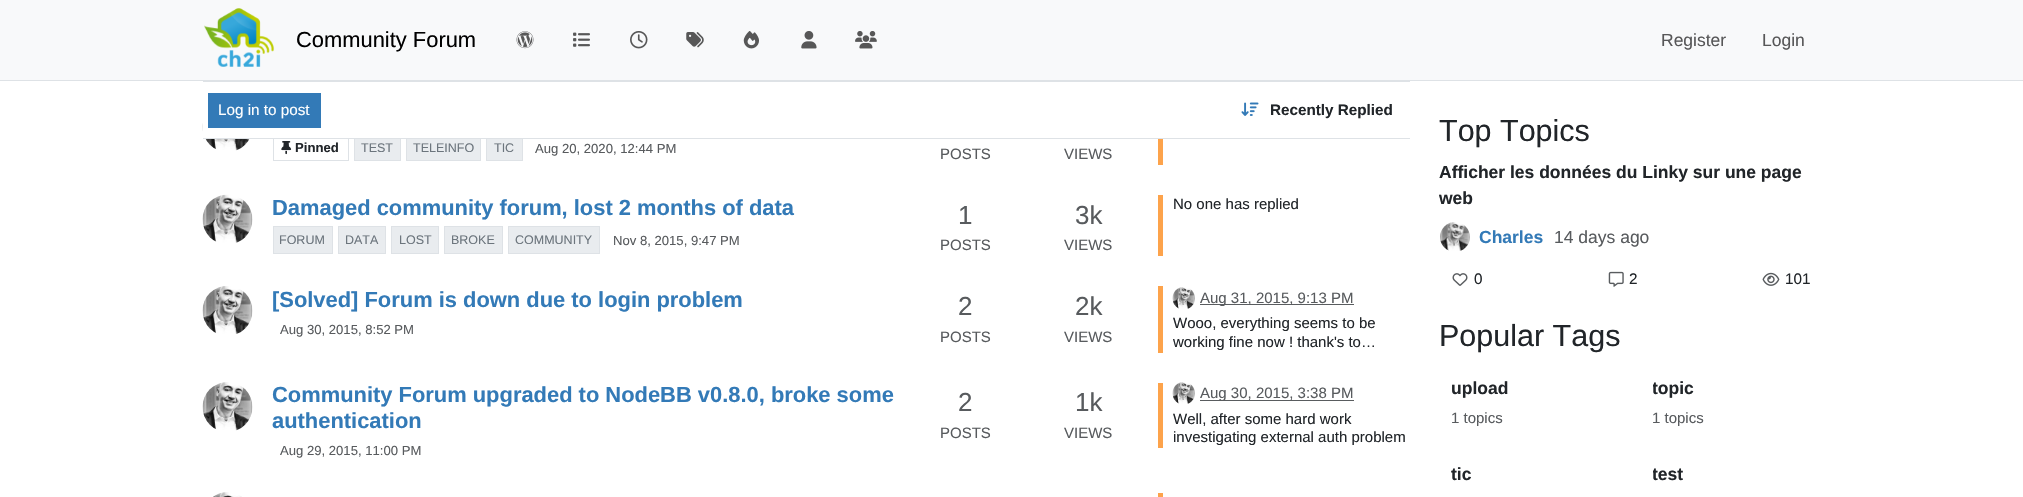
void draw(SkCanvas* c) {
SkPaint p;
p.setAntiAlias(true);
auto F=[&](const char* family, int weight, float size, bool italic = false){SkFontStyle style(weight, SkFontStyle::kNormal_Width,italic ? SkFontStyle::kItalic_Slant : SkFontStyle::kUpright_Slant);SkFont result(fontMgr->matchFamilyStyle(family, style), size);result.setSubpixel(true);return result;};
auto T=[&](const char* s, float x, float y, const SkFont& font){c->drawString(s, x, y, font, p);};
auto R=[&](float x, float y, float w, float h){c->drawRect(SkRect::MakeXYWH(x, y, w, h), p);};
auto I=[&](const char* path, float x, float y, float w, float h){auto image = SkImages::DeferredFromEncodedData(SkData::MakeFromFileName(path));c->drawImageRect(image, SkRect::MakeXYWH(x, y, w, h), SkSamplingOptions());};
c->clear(0xffffffff);
p.setColor(0xfff8f9fa);
R(0,0,2023,80);
p.setColor(0xffdee2e6);
R(0,80,2023,1);
I("1.png",204,8,71,59);
auto f1 = F("Liberation Sans",400,21.9);
p.setColor(0xff000000);
T("Community Forum",296,47,f1);
I("2.png",516,31,18,18);
I("3.png",573,32,17,15);
I("4.png",630,31,18,18);
I("5.png",686,32,18,16);
I("6.png",743,31,16,18);
I("7.png",801,31,16,18);
I("8.png",855,31,22,18);
auto f2 = F("Liberation Sans",400,17.5);
p.setColor(0xff575758);
T("Register",1661,46,f2);
T("Login",1762,46,f2);
I("10.png",202,123,48,28);
p.setStroke(true);
p.setStrokeWidth(1);
p.setColor(0xffdee2e6);
c->drawRect(SkRect::MakeXYWH(273.5,135.5,75,25),p);
p.setStroke(false);
p.setColor(0xffe9ecef);
R(355,139,45,21);
p.setStroke(true);
p.setColor(0xffdee2e6);
c->drawRect(SkRect::MakeXYWH(354.5,134.5,46,26),p);
p.setStroke(false);
p.setColor(0xffe9ecef);
R(407,139,73,21);
p.setStroke(true);
p.setColor(0xffdee2e6);
c->drawRect(SkRect::MakeXYWH(406.5,134.5,74,26),p);
p.setStroke(false);
p.setColor(0xffe9ecef);
R(487,139,35,21);
p.setStroke(true);
p.setColor(0xffdee2e6);
c->drawRect(SkRect::MakeXYWH(486.5,134.5,36,26),p);
p.setStroke(false);
p.setColor(0xffffffff);
R(203,123,320,15);
p.setColor(0xffdee2e6);
R(203,81,1207,1);
R(203,138,1207,1);
p.setColor(0xff337ab7);
R(208,93,113,35);
auto f3 = F("Liberation Sans",400,15.25);
p.setColor(0xffffffff);
T("Log in to post",218,115,f3);
I("9.png",1241,102,18,14);
auto f4 = F("Liberation Sans",700,15.25);
p.setColor(0xff212529);
T("Recently Replied",1270,115,f4);
I("11.png",281,141,11,14);
auto f5 = F("Liberation Sans",700,13.1);
T("Pinned",295,152,f5);
auto f6 = F("Liberation Sans",400,12.5);
p.setColor(0xff6c757d);
T("TEST",361,152,f6);
T("TELEINFO",413,152,f6);
T("TIC",494,152,f6);
auto f7 = F("Liberation Sans",400,13.1);
p.setColor(0xff585b5e);
T("Aug 20, 2020, 12:44 PM",535,153,f7);
auto f8 = F("Liberation Sans",400,15);
T("POSTS",940,159,f8);
T("VIEWS",1064,159,f8);
p.setColor(0xfffda34b);
R(1158,139,5,26);
I("12.png",202,194,51,49);
auto f9 = F("Liberation Sans",700,21.9);
p.setColor(0xff337ab7);
T("Damaged community forum, lost 2 months of data",272,215,f9);
p.setColor(0xffe9ecef);
c->drawRect(SkRect::MakeXYWH(273.5,226.5,59,27),p);
p.setStroke(true);
p.setColor(0xffdee2e6);
c->drawRect(SkRect::MakeXYWH(273.5,226.5,59,27),p);
p.setStroke(false);
p.setColor(0xff6c757d);
T("FORUM",279,244,f6);
p.setColor(0xffe9ecef);
c->drawRect(SkRect::MakeXYWH(338.5,226.5,47,27),p);
p.setStroke(true);
p.setColor(0xffdee2e6);
c->drawRect(SkRect::MakeXYWH(338.5,226.5,47,27),p);
p.setStroke(false);
p.setColor(0xff6c757d);
T("DATA",345,244,f6);
p.setColor(0xffe9ecef);
c->drawRect(SkRect::MakeXYWH(391.5,226.5,47,27),p);
p.setStroke(true);
p.setColor(0xffdee2e6);
c->drawRect(SkRect::MakeXYWH(391.5,226.5,47,27),p);
p.setStroke(false);
p.setColor(0xff6c757d);
T("LOST",399,244,f6);
p.setColor(0xffe9ecef);
c->drawRect(SkRect::MakeXYWH(444.5,226.5,58,27),p);
p.setStroke(true);
p.setColor(0xffdee2e6);
c->drawRect(SkRect::MakeXYWH(444.5,226.5,58,27),p);
p.setStroke(false);
p.setColor(0xff6c757d);
T("BROKE",451,244,f6);
p.setColor(0xffe9ecef);
c->drawRect(SkRect::MakeXYWH(508.5,226.5,91,27),p);
p.setStroke(true);
p.setColor(0xffdee2e6);
c->drawRect(SkRect::MakeXYWH(508.5,226.5,91,27),p);
p.setStroke(false);
p.setColor(0xff6c757d);
T("COMMUNITY",515,244,f6);
p.setColor(0xff585b5e);
T("Nov 8, 2015, 9:47 PM",613,245,f7);
auto f10 = F("Liberation Sans",400,26);
T("1",958,224,f10);
T("POSTS",940,250,f8);
T("3k",1075,224,f10);
T("VIEWS",1064,250,f8);
p.setColor(0xfffda34b);
R(1158,195,5,61);
p.setColor(0xff212529);
T("No one has replied",1173,209,f8);
I("13.png",202,286,51,48);
p.setColor(0xff337ab7);
T("[Solved] Forum is down due to login problem",272,307,f9);
p.setColor(0xff585b5e);
T("Aug 30, 2015, 8:52 PM",280,334,f7);
T("2",958,315,f10);
T("POSTS",940,342,f8);
T("2k",1075,315,f10);
T("VIEWS",1064,342,f8);
p.setColor(0xfffda34b);
R(1158,286,5,67);
I("14.png",1172,287,23,22);
p.setColor(0xff595c5f);
R(1200,304,154,1);
p.setColor(0xff585b5e);
T("Aug 31, 2015, 9:13 PM",1200,303,f8);
p.setColor(0xff212529);
T("Wooo, everything seems to be",1173,328,f8);
T("working fine now ! thank's to…",1173,347,f8);
I("15.png",202,382,51,49);
p.setColor(0xff337ab7);
T("Community Forum upgraded to NodeBB v0.8.0, broke some",272,402,f9);
T("authentication",272,428,f9);
p.setColor(0xff585b5e);
T("Aug 29, 2015, 11:00 PM",280,455,f7);
T("2",958,411,f10);
T("POSTS",940,438,f8);
T("1k",1075,411,f10);
T("VIEWS",1064,438,f8);
p.setColor(0xfffda34b);
R(1158,383,5,65);
I("16.png",1172,382,23,22);
p.setColor(0xff595c5f);
R(1200,400,154,1);
p.setColor(0xff585b5e);
T("Aug 30, 2015, 3:38 PM",1200,398,f8);
p.setColor(0xff212529);
T("Well, after some hard work",1173,424,f8);
T("investigating external auth problem",1173,442,f8);
I("17.png",213,492,29,5);
p.setColor(0xfffda34b);
R(1158,493,5,4);
auto f11 = F("Liberation Sans",400,30.5);
p.setColor(0xff212529);
T("Top Topics",1439,141,f11);
auto f12 = F("Liberation Sans",700,17.5);
T("Afficher les données du Linky sur une page",1439,178,f12);
T("web",1439,204,f12);
I("18.png",1440,222,30,29);
p.setColor(0xff337ab7);
T("Charles",1479,243,f12);
p.setColor(0xff585b5e);
T("14 days ago",1554,243,f2);
I("19.png",1452,273,16,13);
p.setColor(0xff212529);
T("0",1474,284,f3);
I("20.png",1608,271,16,16);
T("2",1629,284,f3);
I("21.png",1762,272,18,14);
T("101",1785,284,f3);
T("Popular Tags",1439,346,f11);
T("upload",1451,394,f12);
p.setColor(0xff585b5e);
T("1 topics",1451,423,f8);
c->save();
c->clipRect(SkRect::MakeXYWH(1653,375,158,26));
p.setColor(0xff212529);
T("topic",1652,394,f12);
c->restore();
p.setColor(0xff585b5e);
T("1 topics",1652,423,f8);
p.setColor(0xff212529);
T("tic",1451,480,f12);
c->save();
c->clipRect(SkRect::MakeXYWH(1653,461,158,27));
T("test",1652,480,f12);
c->restore();
}
